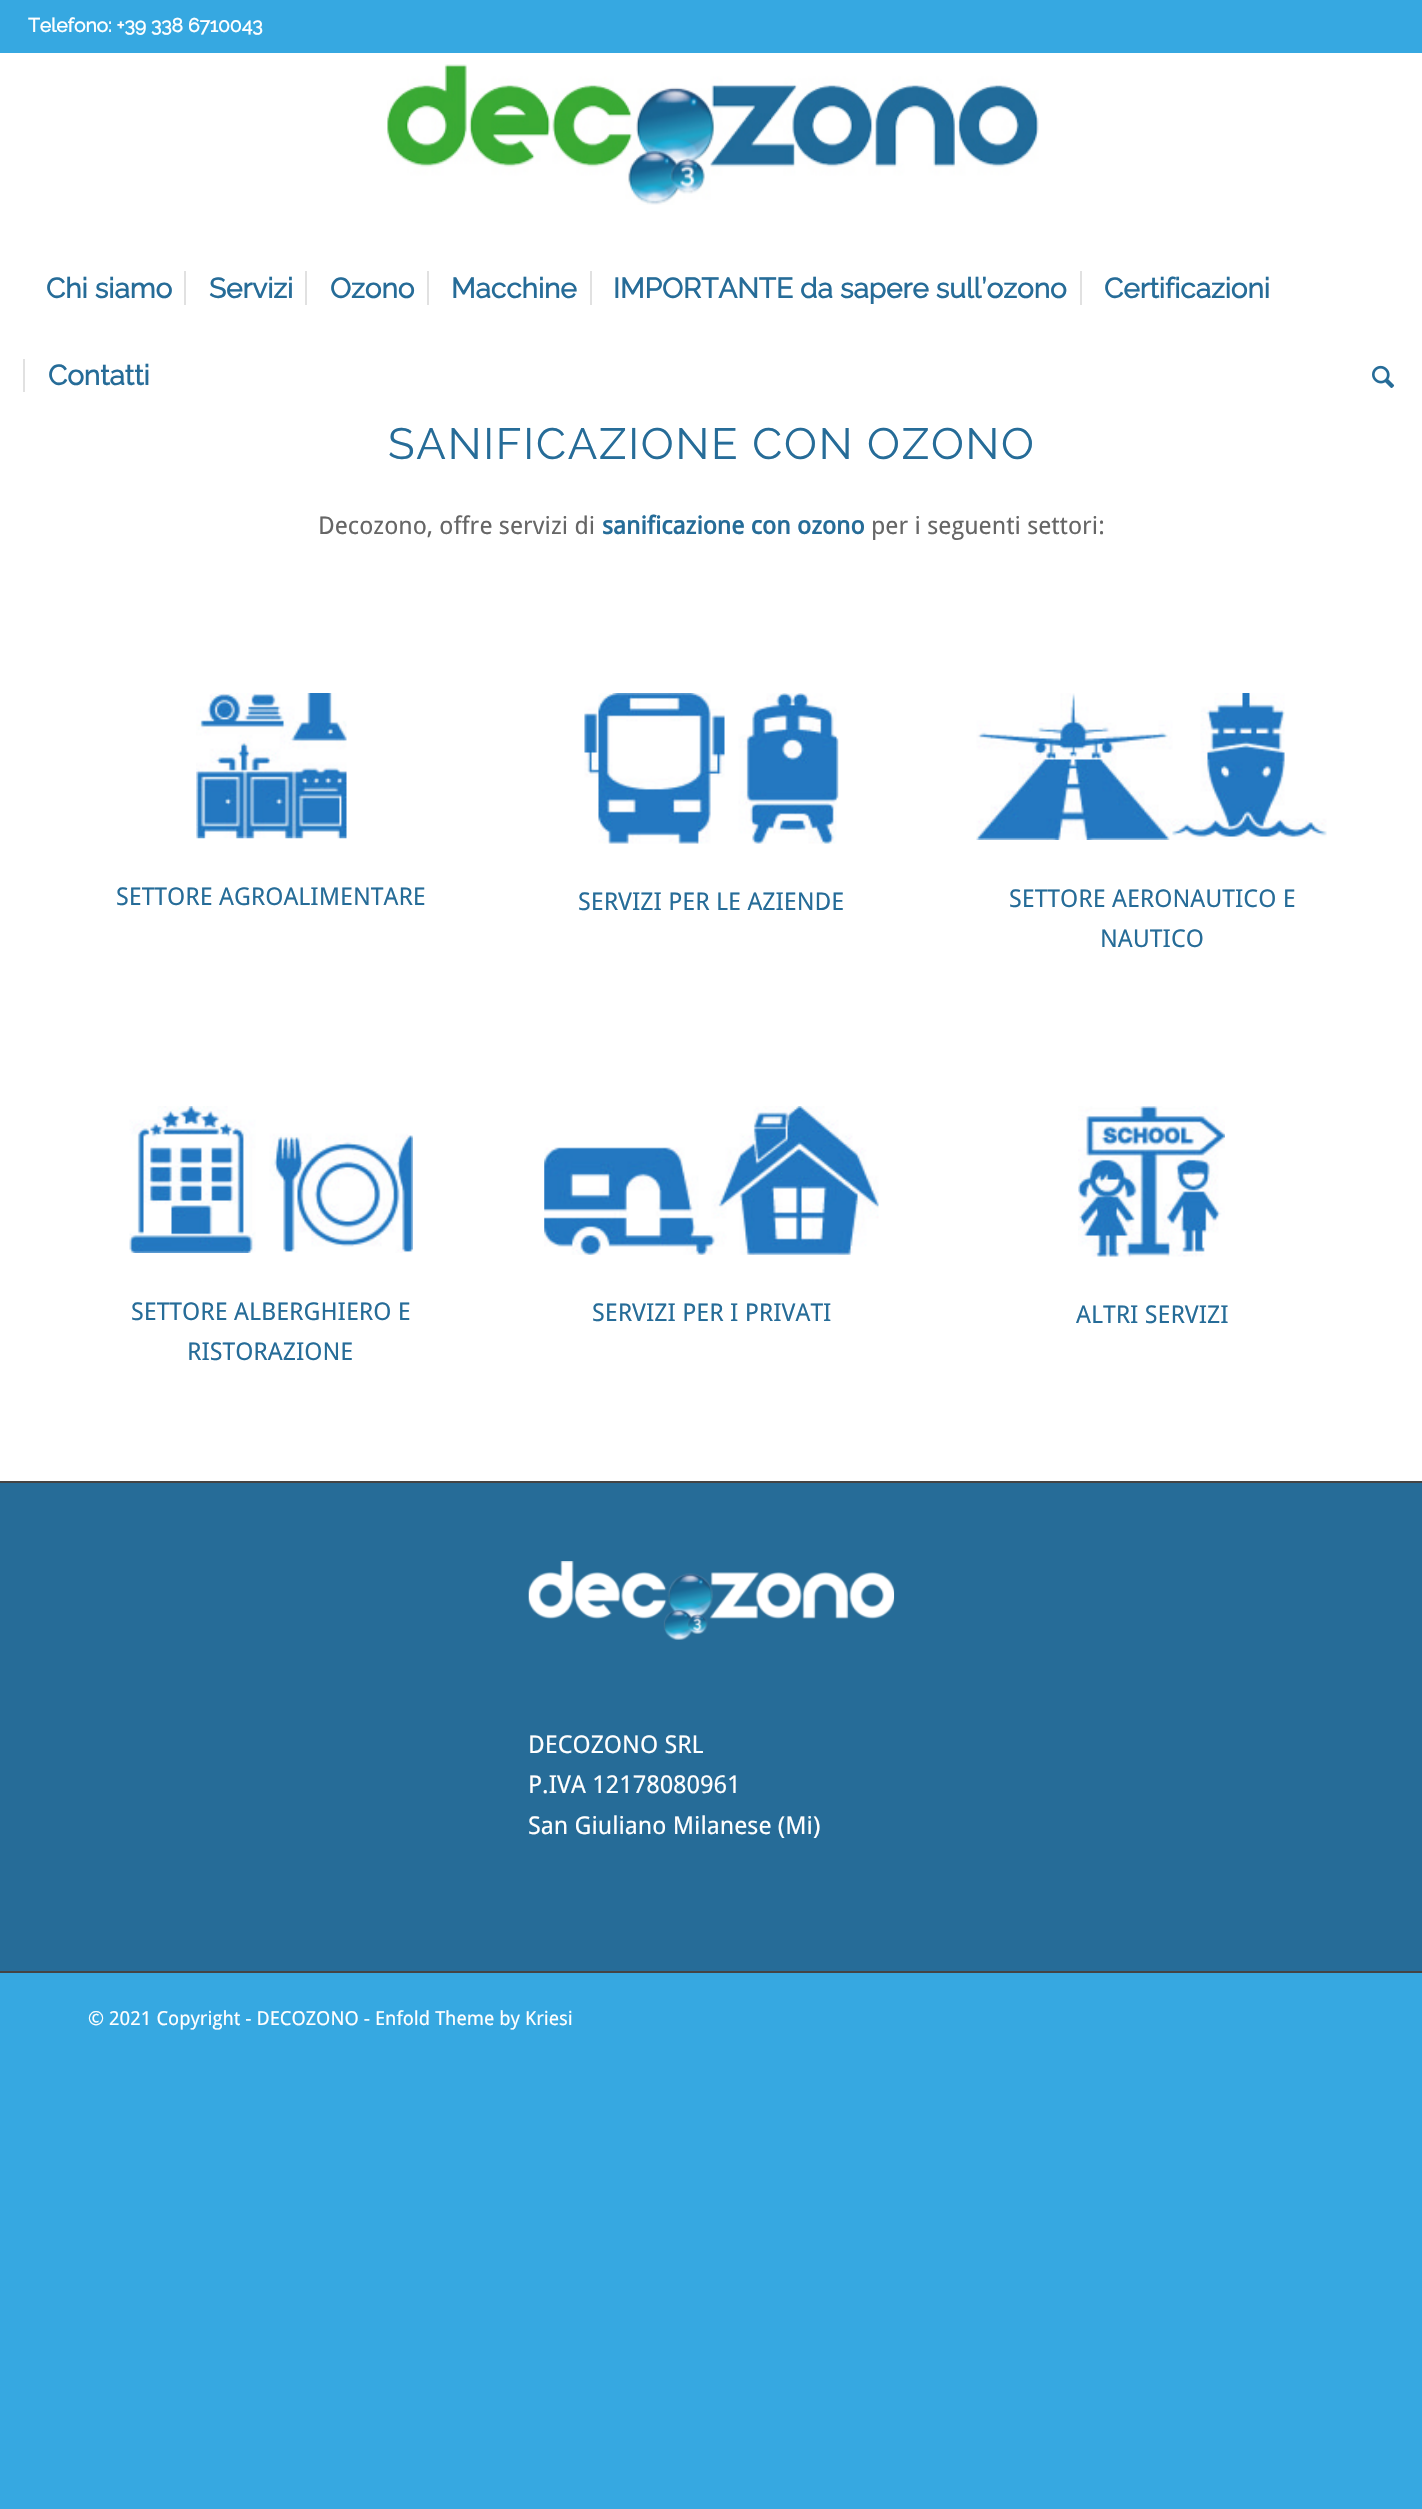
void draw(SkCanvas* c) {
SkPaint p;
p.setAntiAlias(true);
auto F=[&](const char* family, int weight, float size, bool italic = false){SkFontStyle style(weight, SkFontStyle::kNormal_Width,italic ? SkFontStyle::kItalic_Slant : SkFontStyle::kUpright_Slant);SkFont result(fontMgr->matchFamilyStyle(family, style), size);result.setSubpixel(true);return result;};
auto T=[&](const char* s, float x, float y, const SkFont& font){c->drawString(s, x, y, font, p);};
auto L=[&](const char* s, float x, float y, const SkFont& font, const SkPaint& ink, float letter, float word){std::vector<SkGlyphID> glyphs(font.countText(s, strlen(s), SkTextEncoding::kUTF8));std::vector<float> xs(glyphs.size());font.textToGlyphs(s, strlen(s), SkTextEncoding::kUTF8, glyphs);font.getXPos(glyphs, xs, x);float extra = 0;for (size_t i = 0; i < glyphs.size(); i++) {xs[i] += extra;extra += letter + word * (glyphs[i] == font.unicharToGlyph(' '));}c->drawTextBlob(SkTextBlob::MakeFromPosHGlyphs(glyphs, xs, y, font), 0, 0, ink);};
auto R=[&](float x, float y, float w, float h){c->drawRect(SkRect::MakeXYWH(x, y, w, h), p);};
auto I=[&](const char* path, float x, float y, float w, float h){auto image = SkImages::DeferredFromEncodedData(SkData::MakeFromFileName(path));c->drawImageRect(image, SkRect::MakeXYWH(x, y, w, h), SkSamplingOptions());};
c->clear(0xff36a8e1);
auto f1 = F("Raleway",700,19.25);
p.setColor(0xffffffff);
T("Telefono: +39 338 6710043",28,32,f1);
R(0,53,1422,1428);
I("1.png",387,64,652,141);
auto f2 = F("Raleway",700,28);
p.setColor(0xff266c98);
T("Chi siamo",46,298,f2);
T("Servizi",209,298,f2);
p.setColor(0xffe1e1e1);
R(184,271,2,34);
p.setColor(0xff266c98);
T("Ozono",330,298,f2);
p.setColor(0xffe1e1e1);
R(305,271,2,34);
p.setColor(0xff266c98);
T("Macchine",451,298,f2);
p.setColor(0xffe1e1e1);
R(427,271,2,34);
p.setColor(0xff266c98);
T("IMPORTANTE da sapere sull’ozono",613,298,f2);
p.setColor(0xffe1e1e1);
R(590,271,2,34);
p.setColor(0xff266c98);
T("Certificazioni",1104,298,f2);
p.setColor(0xffe1e1e1);
R(1080,271,2,34);
p.setColor(0xff266c98);
T("Contatti",48,385,f2);
p.setColor(0xffe1e1e1);
R(23,359,2,33);
I("2.png",1372,365,23,23);
auto f3 = F("Raleway",100,43.75);
p.setColor(0xff266c98);
L("SANIFICAZIONE CON OZONO",388,459,f3,p,1.75,0);
auto f4 = F("Droid Sans",400,24.5);
p.setColor(0xff666666);
T("Decozono, offre servizi di",318,534,f4);
auto f5 = F("Droid Sans",700,24.5);
p.setColor(0xff266c98);
T("sanificazione con ozono",602,534,f5);
p.setColor(0xff666666);
T("per i seguenti settori:",871,534,f4);
I("3.png",196,693,151,146);
p.setColor(0xff266c98);
T("SETTORE AGROALIMENTARE",116,905,f4);
I("4.png",584,693,255,151);
T("SERVIZI PER LE AZIENDE",578,910,f4);
I("5.png",976,693,351,147);
T("SETTORE AERONAUTICO E",1009,907,f4);
T("NAUTICO",1100,947,f4);
I("6.png",129,1106,284,147);
T("SETTORE ALBERGHIERO E",131,1320,f4);
T("RISTORAZIONE",187,1360,f4);
I("7.png",544,1106,335,149);
T("SERVIZI PER I PRIVATI",592,1321,f4);
I("8.png",1078,1106,147,151);
T("ALTRI SERVIZI",1076,1323,f4);
R(0,1483,1422,488);
p.setColor(0xff444444);
R(0,1481,1422,2);
I("9.png",528,1561,367,79);
p.setColor(0xffffffff);
T("DECOZONO SRL",528,1753,f4);
T("P.IVA 12178080961",528,1793,f4);
T("San Giuliano Milanese (Mi)",528,1834,f4);
p.setColor(0xff444444);
R(0,1971,1422,2);
auto f6 = F("Droid Sans",400,19.25);
p.setColor(0xffffffff);
T("© 2021 Copyright - DECOZONO - Enfold Theme by Kriesi",88,2025,f6);
}
